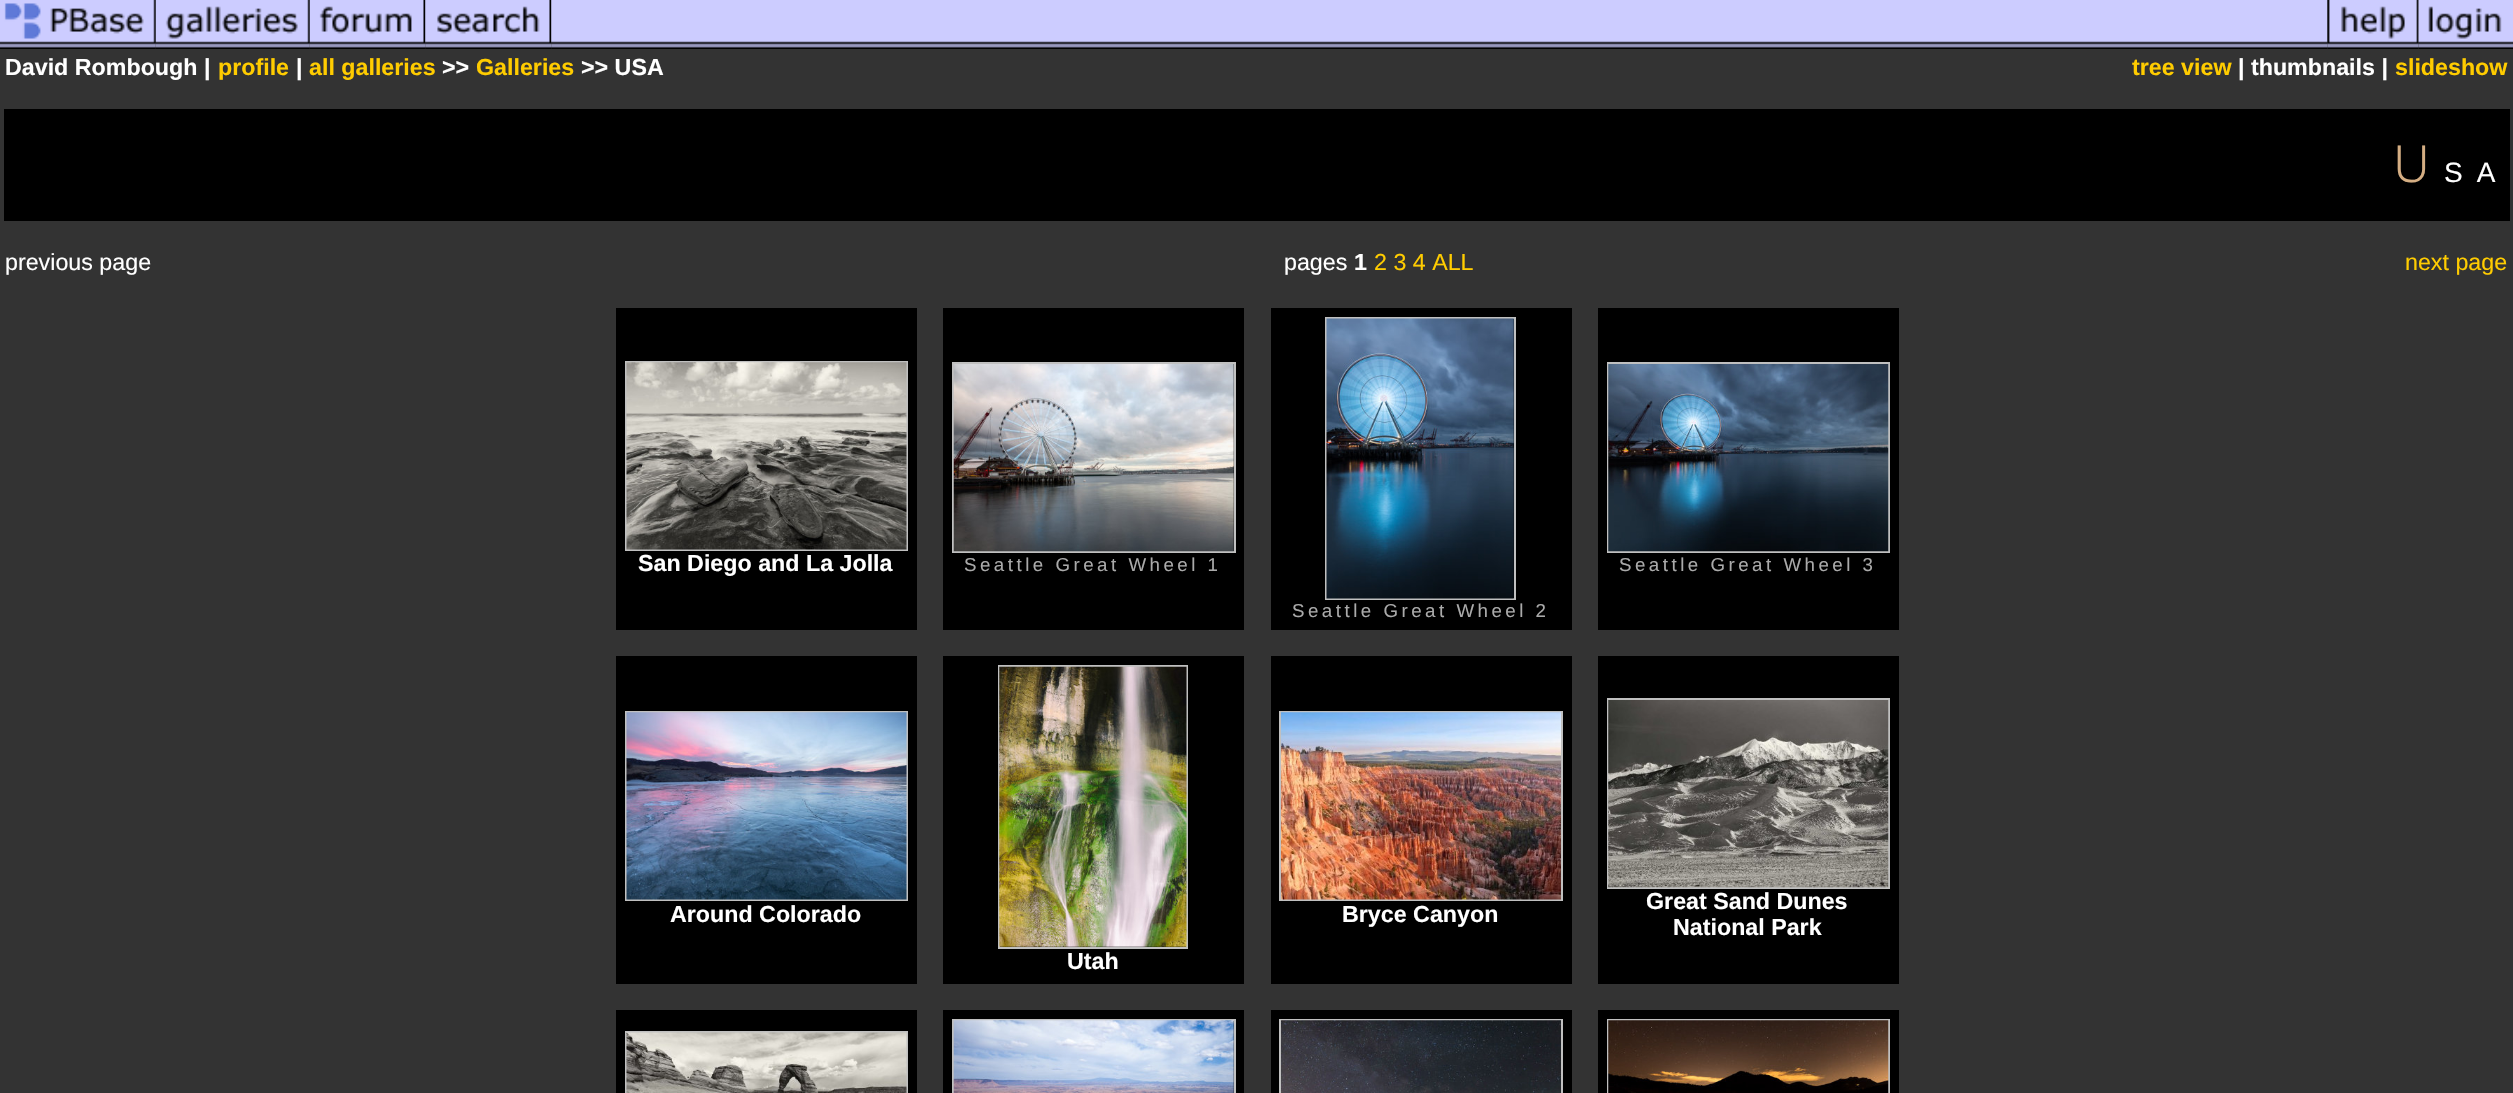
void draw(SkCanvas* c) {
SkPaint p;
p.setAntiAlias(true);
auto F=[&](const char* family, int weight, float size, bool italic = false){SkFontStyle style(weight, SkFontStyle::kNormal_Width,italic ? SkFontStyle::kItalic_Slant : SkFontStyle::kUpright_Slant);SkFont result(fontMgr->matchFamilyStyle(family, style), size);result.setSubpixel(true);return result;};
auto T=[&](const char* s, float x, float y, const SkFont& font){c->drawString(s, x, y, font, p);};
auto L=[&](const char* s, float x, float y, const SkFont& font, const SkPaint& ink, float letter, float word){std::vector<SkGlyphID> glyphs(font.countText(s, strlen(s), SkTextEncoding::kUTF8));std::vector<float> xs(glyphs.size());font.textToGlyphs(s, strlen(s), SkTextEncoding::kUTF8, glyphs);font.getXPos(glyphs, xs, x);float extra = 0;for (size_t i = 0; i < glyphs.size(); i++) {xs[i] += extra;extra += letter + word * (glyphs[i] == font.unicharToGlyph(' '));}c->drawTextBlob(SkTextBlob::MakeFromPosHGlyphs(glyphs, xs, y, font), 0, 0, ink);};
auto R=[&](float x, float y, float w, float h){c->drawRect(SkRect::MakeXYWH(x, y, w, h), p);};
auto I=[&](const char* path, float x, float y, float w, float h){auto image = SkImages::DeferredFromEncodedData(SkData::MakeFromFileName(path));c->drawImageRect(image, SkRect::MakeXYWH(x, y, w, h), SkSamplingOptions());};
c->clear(0xff333333);
I("1.png",0,0,156,49);
I("2.png",155,0,155,49);
I("3.png",309,0,117,49);
I("4.png",425,0,127,49);
I("5.png",551,0,1777,49);
I("6.png",2327,0,92,49);
I("7.png",2418,0,95,49);
auto f1 = F("Liberation Sans",700,23.25);
p.setColor(0xffffffff);
T("David Rombough |",5,75,f1);
p.setColor(0xffffcc00);
T("profile",218,75,f1);
p.setColor(0xffffffff);
T("|",296,75,f1);
p.setColor(0xffffcc00);
T("all galleries",309,75,f1);
p.setColor(0xffffffff);
T(">>",442,75,f1);
p.setColor(0xffffcc00);
T("Galleries",476,75,f1);
p.setColor(0xffffffff);
T(">> USA",581,75,f1);
p.setColor(0xffffcc00);
T("tree view",2132,75,f1);
p.setColor(0xffffffff);
T("| thumbnails |",2238,75,f1);
p.setColor(0xffffcc00);
T("slideshow",2395,75,f1);
p.setColor(0xff000000);
R(4,109,2506,112);
auto f2 = F("Noto Sans",300,51);
p.setColor(0xffd5ae83);
L("U",2393,182,f2,p,14,0);
auto f3 = F("Liberation Sans",400,28);
p.setColor(0xffffffff);
L("SA",2444,182,f3,p,14,0);
auto f4 = F("Liberation Sans",400,23.25);
T("previous page",5,270,f4);
T("pages",1284,270,f4);
T("1",1354,270,f1);
p.setColor(0xffffcc00);
T("2 3 4 ALL",1374,270,f4);
T("next page",2405,270,f4);
p.setColor(0xff000000);
R(616,308,301,322);
p.setStroke(true);
p.setStrokeWidth(2);
p.setColor(0xffc0c0c0);
c->drawRect(SkRect::MakeXYWH(626,362,281,188),p);
I("8.png",626,362,281,188);
p.setStroke(false);
p.setColor(0xffffffff);
T("San Diego and La Jolla",638,571,f1);
p.setColor(0xff000000);
R(943,308,301,322);
p.setStroke(true);
p.setColor(0xffc0c0c0);
c->drawRect(SkRect::MakeXYWH(953,363,282,189),p);
I("9.png",953,364,281,188);
auto f5 = F("Liberation Sans",400,18.7);
p.setStroke(false);
p.setColor(0xffaaaaaa);
L("Seattle Great Wheel 1",964,571,f5,p,3.5,0);
p.setColor(0xff000000);
R(1598,308,301,322);
p.setStroke(true);
p.setColor(0xffc0c0c0);
c->drawRect(SkRect::MakeXYWH(1608,363,281,189),p);
I("10.png",1608,364,281,188);
p.setStroke(false);
p.setColor(0xffaaaaaa);
L("Seattle Great Wheel 3",1619,571,f5,p,3.5,0);
p.setColor(0xff000000);
R(1271,308,301,322);
p.setStroke(true);
p.setColor(0xffc0c0c0);
c->drawRect(SkRect::MakeXYWH(1326,318,189,281),p);
I("11.png",1326,318,188,281);
p.setStroke(false);
p.setColor(0xffaaaaaa);
L("Seattle Great Wheel 2",1292,617,f5,p,3.5,0);
p.setColor(0xff000000);
R(616,656,301,328);
p.setStroke(true);
p.setColor(0xffc0c0c0);
c->drawRect(SkRect::MakeXYWH(626,712,281,188),p);
I("12.png",626,712,281,188);
p.setStroke(false);
p.setColor(0xffffffff);
T("Around Colorado",670,922,f1);
p.setColor(0xff000000);
R(1271,656,301,328);
p.setStroke(true);
p.setColor(0xffc0c0c0);
c->drawRect(SkRect::MakeXYWH(1280,712,282,188),p);
I("13.png",1281,712,280,188);
p.setStroke(false);
p.setColor(0xffffffff);
T("Bryce Canyon",1342,922,f1);
p.setColor(0xff000000);
R(1598,656,301,328);
p.setStroke(true);
p.setColor(0xffc0c0c0);
c->drawRect(SkRect::MakeXYWH(1608,699,281,189),p);
I("14.png",1608,700,281,188);
p.setStroke(false);
p.setColor(0xffffffff);
T("Great Sand Dunes",1646,909,f1);
T("National Park",1673,935,f1);
p.setColor(0xff000000);
R(943,656,301,328);
p.setStroke(true);
p.setColor(0xffc0c0c0);
c->drawRect(SkRect::MakeXYWH(999,666,188,282),p);
I("15.png",999,666,188,281);
p.setStroke(false);
p.setColor(0xffffffff);
T("Utah",1067,969,f1);
p.setColor(0xff000000);
R(616,1010,301,83);
p.setStroke(true);
p.setColor(0xffc0c0c0);
c->drawRect(SkRect::MakeXYWH(626,1032,281,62),p);
I("16.png",626,1032,281,61);
p.setStroke(false);
p.setColor(0xff000000);
R(943,1010,301,83);
p.setStroke(true);
p.setColor(0xffc0c0c0);
c->drawRect(SkRect::MakeXYWH(953,1020,282,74),p);
I("17.png",953,1020,281,73);
p.setStroke(false);
p.setColor(0xff000000);
R(1271,1010,301,83);
p.setStroke(true);
p.setColor(0xffc0c0c0);
c->drawRect(SkRect::MakeXYWH(1280,1020,282,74),p);
I("18.png",1281,1020,280,73);
p.setStroke(false);
p.setColor(0xff000000);
R(1598,1010,301,83);
p.setStroke(true);
p.setColor(0xffc0c0c0);
c->drawRect(SkRect::MakeXYWH(1608,1020,281,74),p);
I("19.png",1608,1020,281,73);
}
